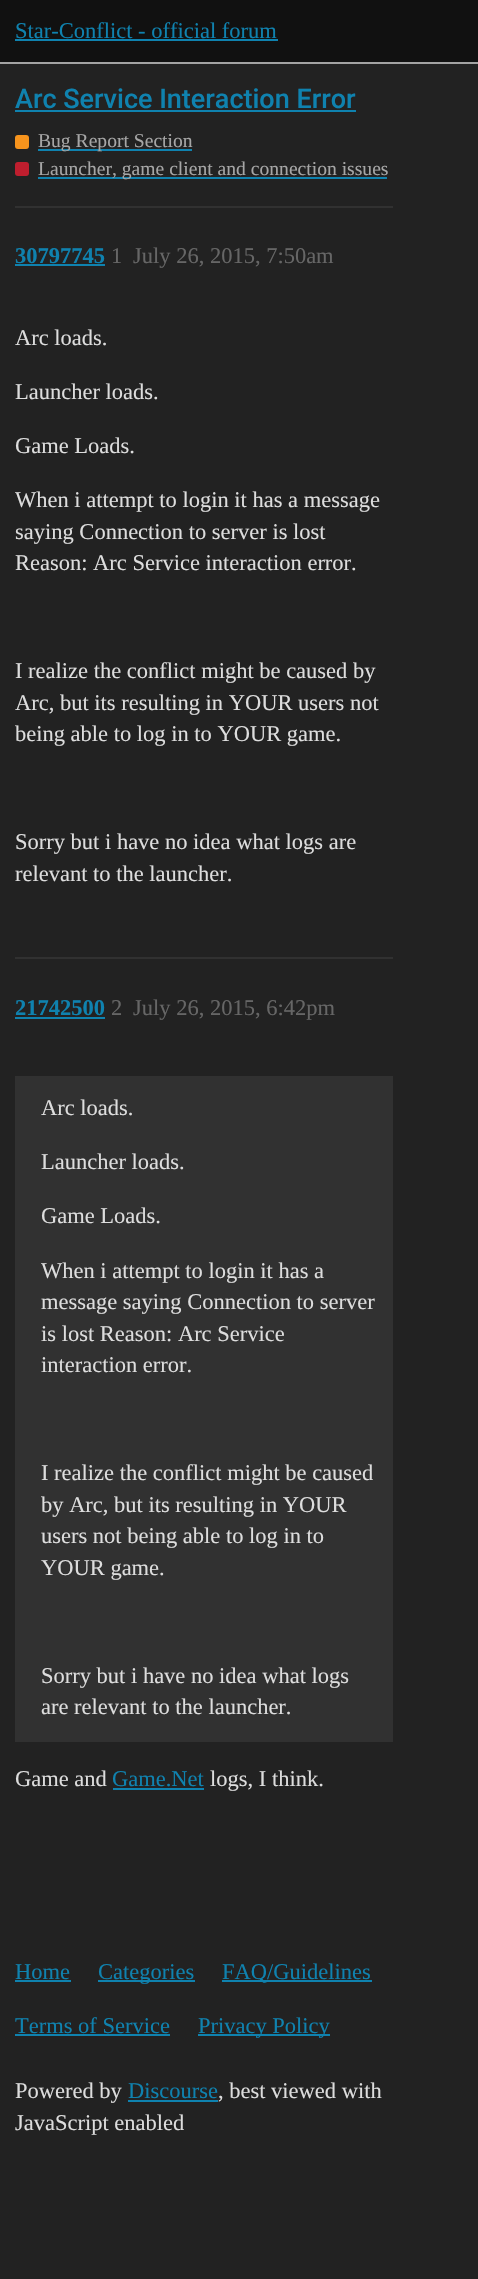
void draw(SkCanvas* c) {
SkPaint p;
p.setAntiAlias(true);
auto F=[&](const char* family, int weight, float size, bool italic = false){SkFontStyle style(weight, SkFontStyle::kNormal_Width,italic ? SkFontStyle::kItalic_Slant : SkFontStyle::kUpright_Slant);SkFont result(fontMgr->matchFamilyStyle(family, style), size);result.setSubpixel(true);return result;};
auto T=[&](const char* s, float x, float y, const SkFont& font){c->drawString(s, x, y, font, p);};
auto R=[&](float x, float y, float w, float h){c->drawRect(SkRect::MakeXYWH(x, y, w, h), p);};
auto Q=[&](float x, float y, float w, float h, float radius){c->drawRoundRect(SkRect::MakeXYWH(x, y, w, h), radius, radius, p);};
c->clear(0xff222222);
p.setColor(0xff111111);
R(0,0,478,62);
p.setColor(0xffa4a4a4);
R(0,62,478,2);
auto f1 = F("Liberation Serif",400,22.5);
p.setColor(0xff0f82af);
T("Star-Conflict - official forum",15,38,f1);
R(15,39,263,2);
auto f2 = F("Roboto",500,27);
T("Arc Service Interaction Error",15,108,f2);
R(15,110,341,2);
p.setColor(0xfff7941d);
Q(15,135,14,14,3);
p.setColor(0xff0f82af);
R(38,149,154,2);
auto f3 = F("Liberation Serif",400,19.6);
p.setColor(0xffa6a6a6);
T("Bug Report Section",38,147,f3);
p.setColor(0xffbf1e2e);
Q(15,162,14,14,3);
p.setColor(0xff0f82af);
R(38,177,349,2);
p.setColor(0xffa6a6a6);
T("Launcher, game client and connection issues",38,175,f3);
p.setColor(0xff313131);
R(15,206,378,2);
auto f4 = F("Liberation Serif",700,22.5);
p.setColor(0xff0f82af);
T("30797745",15,263,f4);
R(15,264,90,2);
p.setColor(0xff666666);
T("1",111,263,f1);
T("July 26, 2015, 7:50am",133,263,f1);
p.setColor(0xffdddddd);
T("Arc loads.",15,345,f1);
T("Launcher loads.",15,399,f1);
T("Game Loads.",15,453,f1);
T("When i attempt to login it has a message",15,507,f1);
T("saying Connection to server is lost",15,539,f1);
T("Reason: Arc Service interaction error.",15,570,f1);
T("I realize the conflict might be caused by",15,678,f1);
T("Arc, but its resulting in YOUR users not",15,710,f1);
T("being able to log in to YOUR game.",15,741,f1);
T("Sorry but i have no idea what logs are",15,849,f1);
T("relevant to the launcher.",15,881,f1);
p.setColor(0xff313131);
R(15,957,378,2);
p.setColor(0xff0f82af);
T("21742500",15,1015,f4);
R(15,1017,90,2);
p.setColor(0xff666666);
T("2",111,1015,f1);
T("July 26, 2015, 6:42pm",133,1015,f1);
p.setColor(0xff313131);
R(15,1076,378,666);
p.setColor(0xffdddddd);
T("Arc loads.",41,1115,f1);
T("Launcher loads.",41,1169,f1);
T("Game Loads.",41,1223,f1);
T("When i attempt to login it has a",41,1278,f1);
T("message saying Connection to server",41,1309,f1);
T("is lost Reason: Arc Service",41,1341,f1);
T("interaction error.",41,1372,f1);
T("I realize the conflict might be caused",41,1480,f1);
T("by Arc, but its resulting in YOUR",41,1512,f1);
T("users not being able to log in to",41,1543,f1);
T("YOUR game.",41,1575,f1);
T("Sorry but i have no idea what logs",41,1683,f1);
T("are relevant to the launcher.",41,1714,f1);
T("Game and",15,1786,f1);
p.setColor(0xff0f82af);
T("Game.Net",112,1786,f1);
R(113,1788,91,2);
p.setColor(0xffdddddd);
T("logs, I think.",210,1786,f1);
p.setColor(0xff0f82af);
T("Home",15,1979,f1);
R(15,1980,56,2);
R(98,1980,97,2);
T("Categories",98,1979,f1);
R(222,1980,150,2);
T("FAQ/Guidelines",222,1979,f1);
T("Terms of Service",15,2033,f1);
R(15,2034,155,2);
R(198,2034,132,2);
T("Privacy Policy",198,2033,f1);
p.setColor(0xffdddddd);
T("Powered by",15,2098,f1);
p.setColor(0xff0f82af);
T("Discourse",128,2098,f1);
R(128,2100,90,2);
p.setColor(0xffdddddd);
T(", best viewed with",218,2098,f1);
T("JavaScript enabled",15,2130,f1);
}
